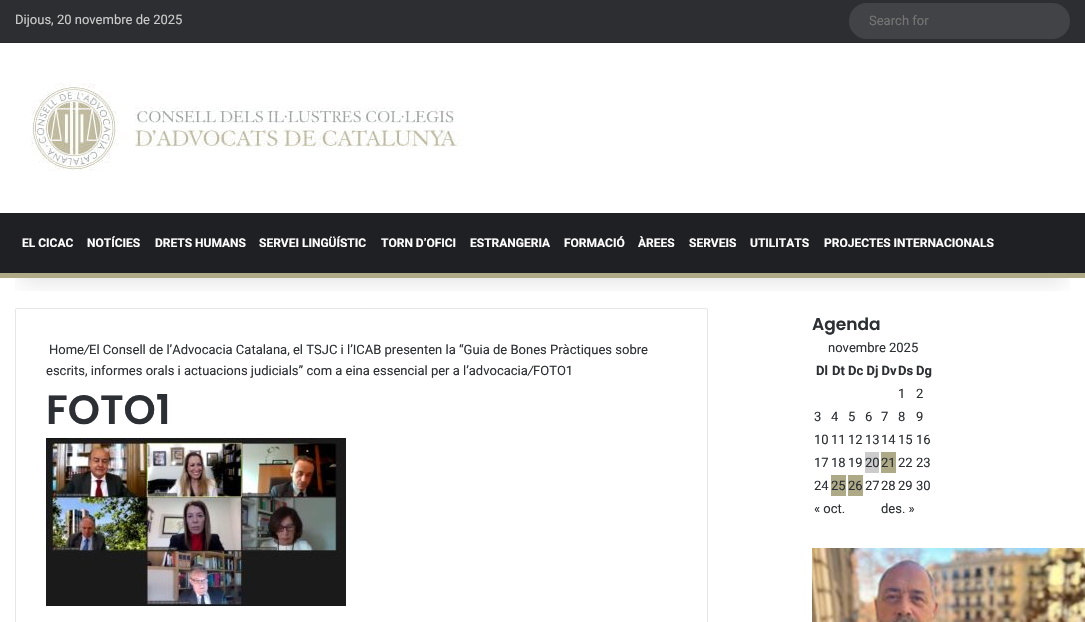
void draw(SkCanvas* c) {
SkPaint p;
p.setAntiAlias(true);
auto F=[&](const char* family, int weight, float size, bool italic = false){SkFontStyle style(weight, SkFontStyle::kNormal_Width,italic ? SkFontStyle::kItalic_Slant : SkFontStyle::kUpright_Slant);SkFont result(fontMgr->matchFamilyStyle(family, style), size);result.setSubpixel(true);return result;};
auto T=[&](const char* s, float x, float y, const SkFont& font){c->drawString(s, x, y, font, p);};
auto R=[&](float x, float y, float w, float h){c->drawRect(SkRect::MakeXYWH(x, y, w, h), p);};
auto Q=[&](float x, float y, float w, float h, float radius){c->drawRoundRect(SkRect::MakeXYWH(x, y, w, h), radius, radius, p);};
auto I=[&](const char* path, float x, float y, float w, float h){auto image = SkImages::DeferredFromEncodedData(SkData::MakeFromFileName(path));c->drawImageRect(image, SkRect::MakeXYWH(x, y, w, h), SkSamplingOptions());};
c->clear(0xffffffff);
p.setStroke(true);
p.setStrokeWidth(1);
p.setColor(0xffe6e6e6);
c->drawRoundRect(SkRect::MakeXYWH(15.5,308.5,692,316),1.5,1.5,p);
c->save();
c->clipRect(SkRect::MakeXYWH(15,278,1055,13));
p.setStroke(false);
p.setColor(0x1a000000);
p.setMaskFilter(SkMaskFilter::MakeBlur(kNormal_SkBlurStyle, 10));
c->drawRect(SkRect::MakeXYWH(20,45,1045,238),p);
p.setMaskFilter(nullptr);
c->restore();
p.setColor(0xff2c2e32);
R(0,0,1085,42);
p.setColor(0xff28292d);
R(0,42,1085,1);
auto f1 = F("Roboto",400,13);
p.setColor(0xffcccccc);
T("Dijous, 20 novembre de 2025",15,24,f1);
p.setColor(0xff414347);
Q(849,3,221,36,18);
p.setColor(0xff757575);
T("Search for",869,25,f1);
I("1.png",31,83,432,88);
p.setColor(0xff1f2024);
R(0,213,1085,60);
p.setColor(0xffaeaa87);
R(0,273,1085,5);
auto f2 = F("Roboto",700,12);
p.setColor(0xffffffff);
T("EL CICAC",22,247,f2);
T("NOTÍCIES",87,247,f2);
T("DRETS HUMANS",155,247,f2);
T("SERVEI LINGÜÍSTIC",259,247,f2);
T("TORN D’OFICI",381,247,f2);
T("ESTRANGERIA",470,247,f2);
T("FORMACIÓ",564,247,f2);
T("ÀREES",638,247,f2);
T("SERVEIS",689,247,f2);
T("UTILITATS",750,247,f2);
T("PROJECTES INTERNACIONALS",824,247,f2);
p.setColor(0xff2c2f34);
T("Home",49,354,f1);
auto f3 = F("Roboto",400,13,true);
T("/",84,354,f3);
T("El Consell de l’Advocacia Catalana, el TSJC i l’ICAB presenten la “Guia de Bones Pràctiques sobre",89,354,f1);
T("escrits, informes orals i actuacions judicials” com a eina essencial per a l’advocacia",46,375,f1);
T("/",528,375,f3);
T("FOTO1",533,375,f1);
auto f4 = F("Poppins",600,41);
T("FOTO1",46,424,f4);
I("2.png",46,438,300,168);
auto f5 = F("Poppins",600,17);
T("Agenda",812,330,f5);
T("novembre 2025",828,352,f1);
auto f6 = F("Roboto",700,13);
T("Dl",816,375,f6);
T("Dt",832,375,f6);
T("Dc Dj Dv",848,375,f6);
T("Ds",898,375,f6);
T("Dg",916,375,f6);
T("1",898,398,f1);
T("2",916,398,f1);
T("3",814,421,f1);
T("4",831,421,f1);
T("5",848,421,f1);
T("6",865,421,f1);
T("7",881,421,f1);
T("8",898,421,f1);
T("9",916,421,f1);
T("10",814,444,f1);
T("11",831,444,f1);
T("12",848,444,f1);
T("13",865,444,f1);
T("14",881,444,f1);
T("15",898,444,f1);
T("16",916,444,f1);
T("17",814,467,f1);
T("18",831,467,f1);
T("19",848,467,f1);
p.setColor(0xffcccccc);
R(865,452,14,21);
p.setColor(0xff2c2f34);
T("20",865,467,f1);
p.setColor(0xffaeaa87);
R(881,452,15,21);
p.setColor(0xff2c2f34);
T("21",881,467,f1);
T("22",898,467,f1);
T("23",916,467,f1);
T("24",814,490,f1);
p.setColor(0xffaeaa87);
R(831,475,15,21);
p.setColor(0xff2c2f34);
T("25",831,490,f1);
p.setColor(0xffaeaa87);
R(848,475,15,21);
p.setColor(0xff2c2f34);
T("26",848,490,f1);
T("27",865,490,f1);
T("28",881,490,f1);
T("29",898,490,f1);
T("30",916,490,f1);
T("« oct.",814,513,f1);
T("des. »",881,513,f1);
I("3.png",812,548,273,74);
}
